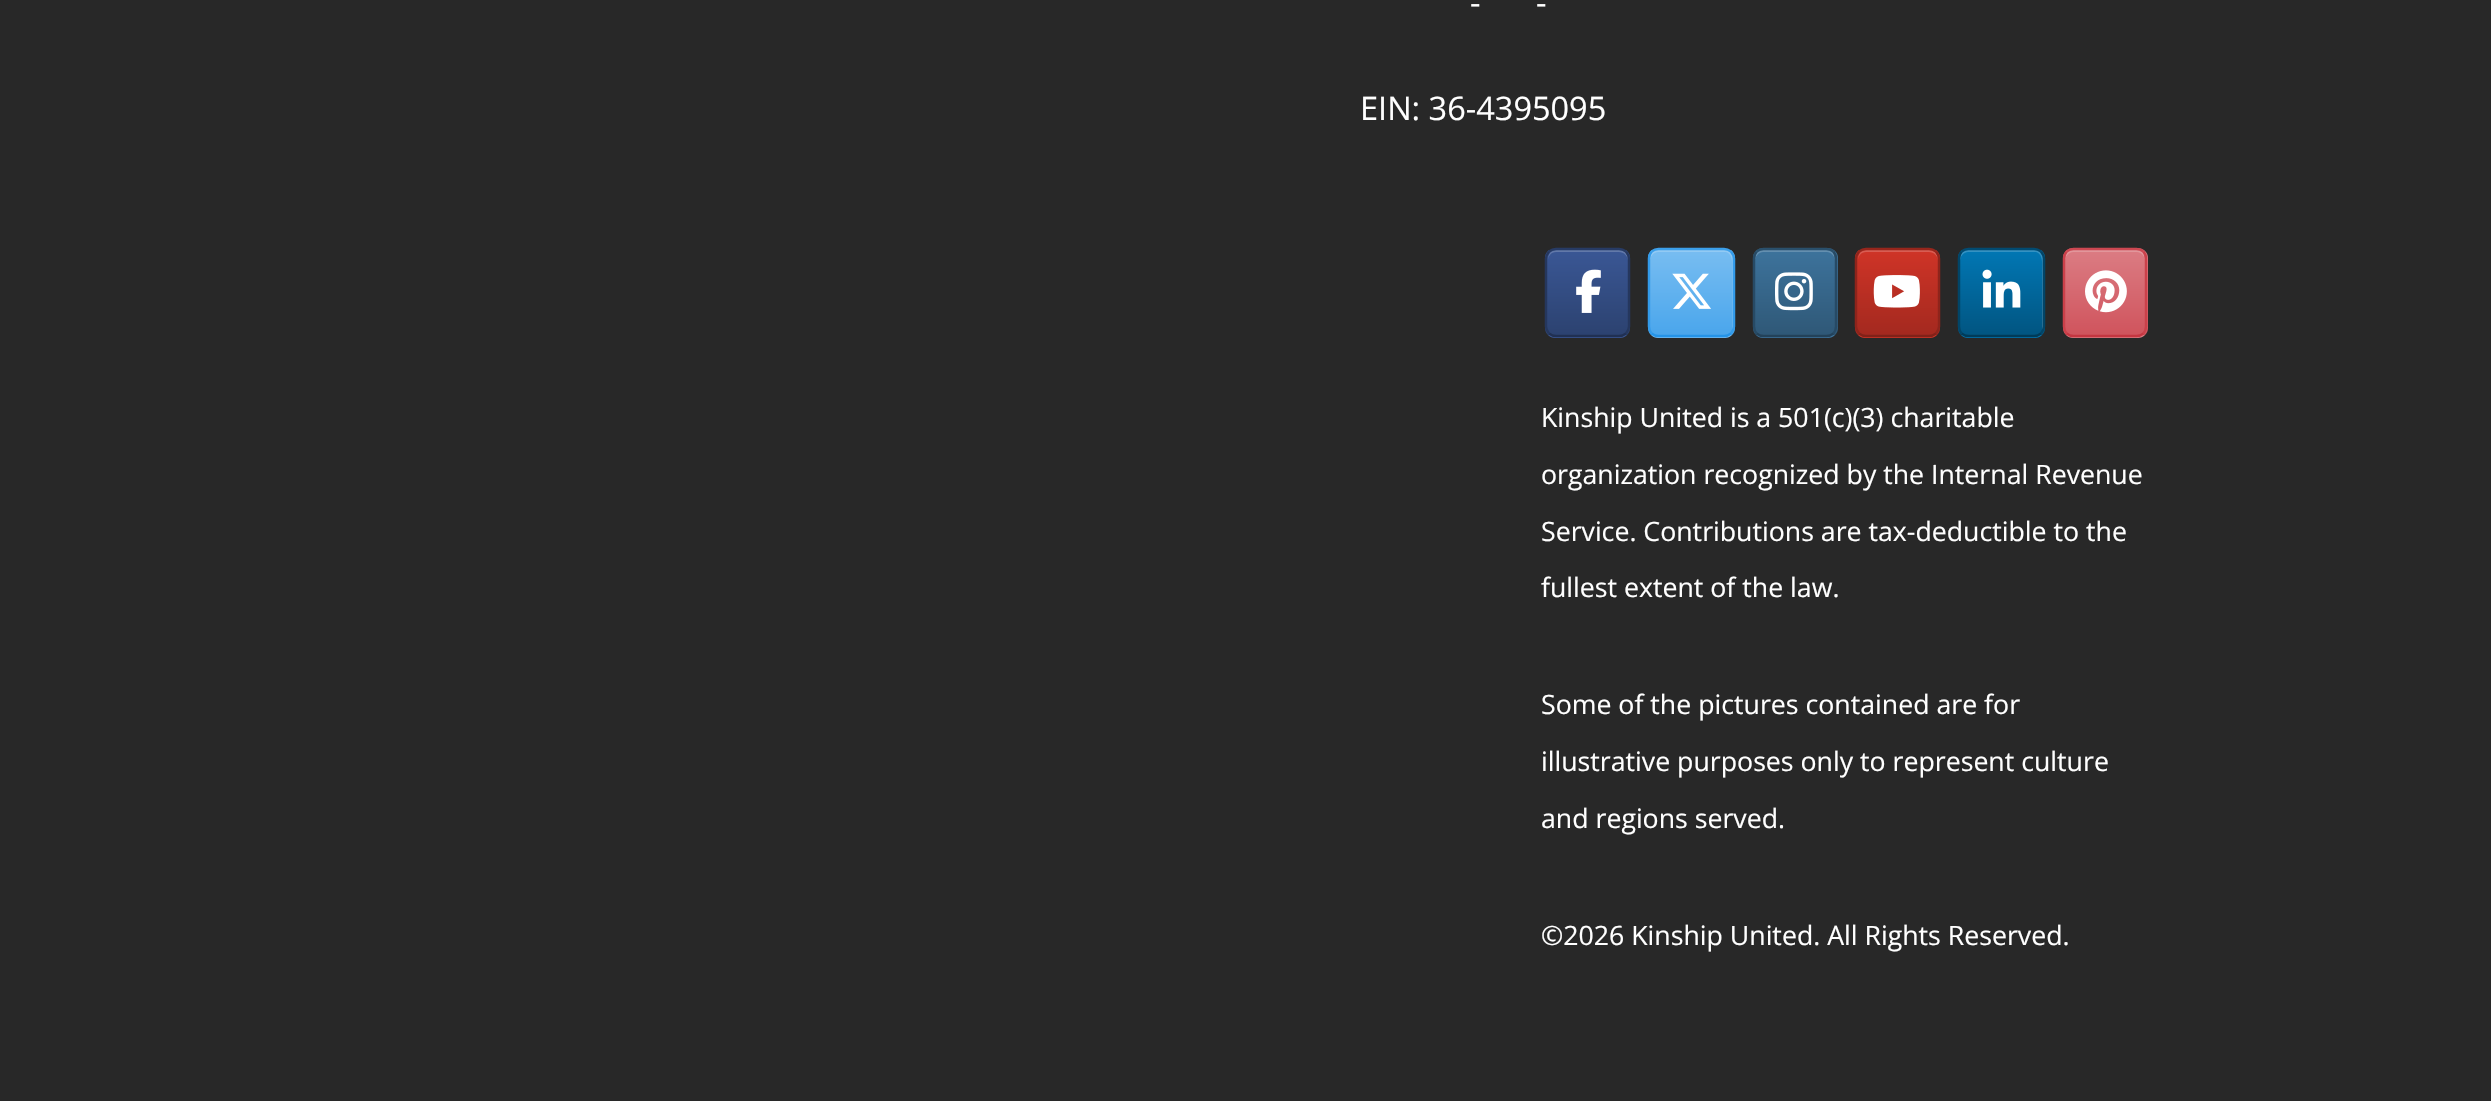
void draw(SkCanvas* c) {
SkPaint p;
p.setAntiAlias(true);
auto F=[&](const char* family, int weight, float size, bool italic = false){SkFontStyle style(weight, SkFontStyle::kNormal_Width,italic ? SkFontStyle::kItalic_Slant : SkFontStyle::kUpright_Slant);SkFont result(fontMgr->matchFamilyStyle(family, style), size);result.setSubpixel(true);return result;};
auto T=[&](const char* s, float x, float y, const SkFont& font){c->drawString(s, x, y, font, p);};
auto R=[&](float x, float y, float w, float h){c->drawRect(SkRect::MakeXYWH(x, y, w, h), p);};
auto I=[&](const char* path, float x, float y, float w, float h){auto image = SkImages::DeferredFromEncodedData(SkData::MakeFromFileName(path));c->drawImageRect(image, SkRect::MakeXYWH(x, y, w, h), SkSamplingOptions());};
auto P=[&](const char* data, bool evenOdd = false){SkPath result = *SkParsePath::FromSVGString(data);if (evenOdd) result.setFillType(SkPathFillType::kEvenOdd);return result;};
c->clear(0xff282828);
auto f1 = F("Open Sans",400,32.5);
p.setColor(0xffffffff);
T("-",1470,14,f1);
T("-",1536,14,f1);
T("EIN: 36-4395095",1360,120,f1);
c->save();
c->clipPath(P("M1555 248h65c5.5 0 10 4.5 10 10v70c0 5.5-4.5 10-10 10h-65c-5.5 0-10-4.5-10-10v-70c0-5.5 4.5-10 10-10z"),true);
{
const SkColor colors[] = {0xff2c4270,0xff3a5795};
const float stops[] = {0,1};
const SkPoint ends[] = {{1548,335}, {1548,250}};
p.setShader(SkGradientShader::MakeLinear(ends, colors, stops, 2, SkTileMode::kClamp));
p.setAlpha(255);
}
R(1545,250,85,85);
{
const SkColor colors[] = {0xff2c4270,0xff3a5795};
const float stops[] = {0,1};
const SkPoint ends[] = {{1548,420}, {1548,335}};
p.setShader(SkGradientShader::MakeLinear(ends, colors, stops, 2, SkTileMode::kClamp));
p.setAlpha(255);
}
R(1545,335,85,3);
c->restore();
p.setShader(nullptr);
p.setColor(0x33ffffff);
c->drawPath(P("M1556 252h63c5 0 9 4 9 9c0-13-8-11-19-11h-42c-11 0-19-2-19 11c0-5 3-9 8-9z"),p);
p.setStroke(true);
p.setStrokeWidth(2.5);
p.setColor(0xff273b65);
c->drawPath(P("M1549 251.5c2-1.5 4.5-2.5 7-2.5h63c2.5 0 5 1 7 2.5"),p);
p.setColor(0xff25375e);
c->drawPath(P("M1626 251.5c1.5 2 3 4.5 3 7v68c0 2.5-1.5 5-3 7"),p);
p.setColor(0xff203053);
c->drawPath(P("M1626 333.5c-2 1.5-4.5 2.5-7 2.5h-63c-2.5 0-5-1-7-2.5"),p);
p.setColor(0xff25375e);
c->drawPath(P("M1549 333.5c-1.5-2-3-4.5-3-7v-68c0-2.5 1.5-5 3-7"),p);
I("1.png",1576,269,25,44);
c->save();
c->clipPath(P("M1658 248h67c5.5 0 10 4.5 10 10v70c0 5.5-4.5 10-10 10h-67c-5.5 0-10-4.5-10-10v-70c0-5.5 4.5-10 10-10z"),true);
p.setStroke(false);
{
const SkColor colors[] = {0xff4aa6ec,0xff78bdf1};
const float stops[] = {0,1};
const SkPoint ends[] = {{1650,335}, {1650,250}};
p.setShader(SkGradientShader::MakeLinear(ends, colors, stops, 2, SkTileMode::kClamp));
p.setAlpha(255);
}
R(1648,250,87,85);
{
const SkColor colors[] = {0xff4aa6ec,0xff78bdf1};
const float stops[] = {0,1};
const SkPoint ends[] = {{1650,420}, {1650,335}};
p.setShader(SkGradientShader::MakeLinear(ends, colors, stops, 2, SkTileMode::kClamp));
p.setAlpha(255);
}
R(1648,335,87,3);
c->restore();
p.setShader(nullptr);
p.setColor(0x33ffffff);
c->drawPath(P("M1658 252h68c8 2 6 15 6 20v59c1-1 1-2 1-4v-69c0-4-4-8-8-8h-67c-4 0-8 4-8 8v3c0-5 4-9 8-9z"),p);
p.setStroke(true);
p.setColor(0xff3ca0eb);
c->drawPath(P("M1651.5 251.5c2-1.5 4.5-2.5 7-2.5h65.5c2.5 0 5 1 7 2.5"),p);
p.setColor(0xff339bea);
c->drawPath(P("M1731 251.5c1.5 2 3 4.5 3 7v68c0 2.5-1.5 5-3 7"),p);
p.setColor(0xff2594e8);
c->drawPath(P("M1731 333.5c-2 1.5-4.5 2.5-7 2.5h-65.5c-2.5 0-5-1-7-2.5"),p);
p.setColor(0xff339bea);
c->drawPath(P("M1651.5 333.5c-1.5-2-2.5-4.5-2.5-7v-68c0-2.5 1-5 2.5-7"),p);
I("2.png",1672,273,39,36);
c->save();
c->clipPath(P("M1763 248h65c5.5 0 10 4.5 10 10v70c0 5.5-4.5 10-10 10h-65c-5.5 0-10-4.5-10-10v-70c0-5.5 4.5-10 10-10z"),true);
p.setStroke(false);
{
const SkColor colors[] = {0xff2f5877,0xff3d739c};
const float stops[] = {0,1};
const SkPoint ends[] = {{1755,250}, {1755,165}};
p.setShader(SkGradientShader::MakeLinear(ends, colors, stops, 2, SkTileMode::kClamp));
p.setAlpha(255);
}
R(1753,248,85,2);
{
const SkColor colors[] = {0xff2f5877,0xff3d739c};
const float stops[] = {0,1};
const SkPoint ends[] = {{1755,335}, {1755,250}};
p.setShader(SkGradientShader::MakeLinear(ends, colors, stops, 2, SkTileMode::kClamp));
p.setAlpha(255);
}
R(1753,250,85,85);
{
const SkColor colors[] = {0xff2f5877,0xff3d739c};
const float stops[] = {0,1};
const SkPoint ends[] = {{1755,420}, {1755,335}};
p.setShader(SkGradientShader::MakeLinear(ends, colors, stops, 2, SkTileMode::kClamp));
p.setAlpha(255);
}
R(1753,335,85,3);
c->restore();
p.setShader(nullptr);
p.setColor(0x33ffffff);
c->drawPath(P("M1763 252h64c4 0 8 4 8 9c0-13-8-11-19-11h-42c-11 0-19-2-19 11c0-5 4-9 8-9z"),p);
p.setStroke(true);
p.setColor(0xff2a506c);
c->drawPath(P("M1756.5 251.5c2-1.5 4.5-2.5 7-2.5h63c2.5 0 5 1 7 2.5"),p);
p.setColor(0xff274a65);
c->drawPath(P("M1833.5 251.5c1.5 2 2.5 4.5 2.5 7v68c0 2.5-1 5-2.5 7"),p);
p.setColor(0xff23425a);
c->drawPath(P("M1833.5 333.5c-2 1.5-4.5 2.5-7 2.5h-63c-2.5 0-5-1-7-2.5"),p);
p.setColor(0xff274a65);
c->drawPath(P("M1756.5 333.5c-1.5-2-2.5-4.5-2.5-7v-68c0-2.5 1-5 2.5-7"),p);
I("3.png",1775,272,38,39);
c->save();
c->clipPath(P("M1865 248h65c5.5 0 10 4.5 10 10v70c0 5.5-4.5 10-10 10h-65c-5.5 0-10-4.5-10-10v-70c0-5.5 4.5-10 10-10z"),true);
p.setStroke(false);
{
const SkColor colors[] = {0xffa4291f,0xffcf3427};
const float stops[] = {0,1};
const SkPoint ends[] = {{1858,335}, {1858,250}};
p.setShader(SkGradientShader::MakeLinear(ends, colors, stops, 2, SkTileMode::kClamp));
p.setAlpha(255);
}
R(1855,250,85,85);
{
const SkColor colors[] = {0xffa4291f,0xffcf3427};
const float stops[] = {0,1};
const SkPoint ends[] = {{1858,420}, {1858,335}};
p.setShader(SkGradientShader::MakeLinear(ends, colors, stops, 2, SkTileMode::kClamp));
p.setAlpha(255);
}
R(1855,335,85,3);
c->restore();
p.setShader(nullptr);
p.setColor(0x33ffffff);
c->drawPath(P("M1866 252h63c5 0 9 4 9 9c0-13-8-11-19-11h-42c-11 0-19-2-19 11c0-5 3-9 8-9z"),p);
p.setStroke(true);
p.setColor(0xff97261c);
c->drawPath(P("M1859 251.5c2-1.5 4.5-2.5 7-2.5h63c2.5 0 5 1 7 2.5"),p);
p.setColor(0xff8f241b);
c->drawPath(P("M1936 251.5c1.5 2 3 4.5 3 7v68c0 2.5-1.5 5-3 7"),p);
p.setColor(0xff822118);
c->drawPath(P("M1936 333.5c-2 1.5-4.5 2.5-7 2.5h-63c-2.5 0-5-1-7-2.5"),p);
p.setColor(0xff8f241b);
c->drawPath(P("M1859 333.5c-1.5-2-3-4.5-3-7v-68c0-2.5 1.5-5 3-7"),p);
I("4.png",1873,275,47,33);
c->save();
c->clipPath(P("M1968 248h67c5.5 0 10 4.5 10 10v70c0 5.5-4.5 10-10 10h-67c-5.5 0-10-4.5-10-10v-70c0-5.5 4.5-10 10-10z"),true);
p.setStroke(false);
{
const SkColor colors[] = {0xff015581,0xff0177b4};
const float stops[] = {0,1};
const SkPoint ends[] = {{1960,335}, {1960,250}};
p.setShader(SkGradientShader::MakeLinear(ends, colors, stops, 2, SkTileMode::kClamp));
p.setAlpha(255);
}
R(1958,250,87,85);
{
const SkColor colors[] = {0xff015581,0xff0177b4};
const float stops[] = {0,1};
const SkPoint ends[] = {{1960,420}, {1960,335}};
p.setShader(SkGradientShader::MakeLinear(ends, colors, stops, 2, SkTileMode::kClamp));
p.setAlpha(255);
}
R(1958,335,87,3);
c->restore();
p.setShader(nullptr);
p.setColor(0x33ffffff);
c->drawPath(P("M1968 252h68c8 2 6 15 6 20v59c1-1 1-2 1-4v-69c0-4-4-8-8-8h-67c-4 0-8 4-8 8v3c0-5 4-9 8-9z"),p);
p.setStroke(true);
p.setColor(0xff014b72);
c->drawPath(P("M1961.5 251.5c2-1.5 4.5-2.5 7-2.5h65.5c2.5 0 5 1 7 2.5"),p);
p.setColor(0xff014568);
c->drawPath(P("M2041 251.5c1.5 2 3 4.5 3 7v68c0 2.5-1.5 5-3 7"),p);
p.setColor(0xff003b59);
c->drawPath(P("M2041 333.5c-2 1.5-4.5 2.5-7 2.5h-65.5c-2.5 0-5-1-7-2.5"),p);
p.setColor(0xff014568);
c->drawPath(P("M1961.5 333.5c-1.5-2-2.5-4.5-2.5-7v-68c0-2.5 1-5 2.5-7"),p);
I("5.png",1982,269,39,39);
c->save();
c->clipPath(P("M2073 248h65c5.5 0 10 4.5 10 10v70c0 5.5-4.5 10-10 10h-65c-5.5 0-10-4.5-10-10v-70c0-5.5 4.5-10 10-10z"),true);
p.setStroke(false);
{
const SkColor colors[] = {0xffd0545d,0xffdb7c83};
const float stops[] = {0,1};
const SkPoint ends[] = {{2065,250}, {2065,165}};
p.setShader(SkGradientShader::MakeLinear(ends, colors, stops, 2, SkTileMode::kClamp));
p.setAlpha(255);
}
R(2063,248,85,2);
{
const SkColor colors[] = {0xffd0545d,0xffdb7c83};
const float stops[] = {0,1};
const SkPoint ends[] = {{2065,335}, {2065,250}};
p.setShader(SkGradientShader::MakeLinear(ends, colors, stops, 2, SkTileMode::kClamp));
p.setAlpha(255);
}
R(2063,250,85,85);
{
const SkColor colors[] = {0xffd0545d,0xffdb7c83};
const float stops[] = {0,1};
const SkPoint ends[] = {{2065,420}, {2065,335}};
p.setShader(SkGradientShader::MakeLinear(ends, colors, stops, 2, SkTileMode::kClamp));
p.setAlpha(255);
}
R(2063,335,85,3);
c->restore();
p.setShader(nullptr);
p.setColor(0x33ffffff);
c->drawPath(P("M2073 252h64c4 0 8 4 8 9c0-13-8-11-19-11h-42c-11 0-19-2-19 11c0-5 4-9 8-9z"),p);
p.setStroke(true);
p.setColor(0xffcd4852);
c->drawPath(P("M2066.5 251.5c2-1.5 4.5-2.5 7-2.5h63c2.5 0 5 1 7 2.5"),p);
p.setColor(0xffcb404a);
c->drawPath(P("M2143.5 251.5c1.5 2 2.5 4.5 2.5 7v68c0 2.5-1 5-2.5 7"),p);
p.setColor(0xffc53641);
c->drawPath(P("M2143.5 333.5c-2 1.5-4.5 2.5-7 2.5h-63c-2.5 0-5-1-7-2.5"),p);
p.setColor(0xffcb404a);
c->drawPath(P("M2066.5 333.5c-1.5-2-2.5-4.5-2.5-7v-68c0-2.5 1-5 2.5-7"),p);
I("6.png",2085,270,42,43);
auto f2 = F("Open Sans",400,26.7);
p.setStroke(false);
p.setColor(0xffffffff);
T("Kinship United is a 501(c)(3) charitable",1541,427,f2);
T("organization recognized by the Internal Revenue",1541,484,f2);
T("Service. Contributions are tax-deductible to the",1541,541,f2);
T("fullest extent of the law.",1541,597,f2);
T("Some of the pictures contained are for",1541,714,f2);
T("illustrative purposes only to represent culture",1541,771,f2);
T("and regions served.",1541,828,f2);
T("©2026 Kinship United. All Rights Reserved.",1541,945,f2);
}
